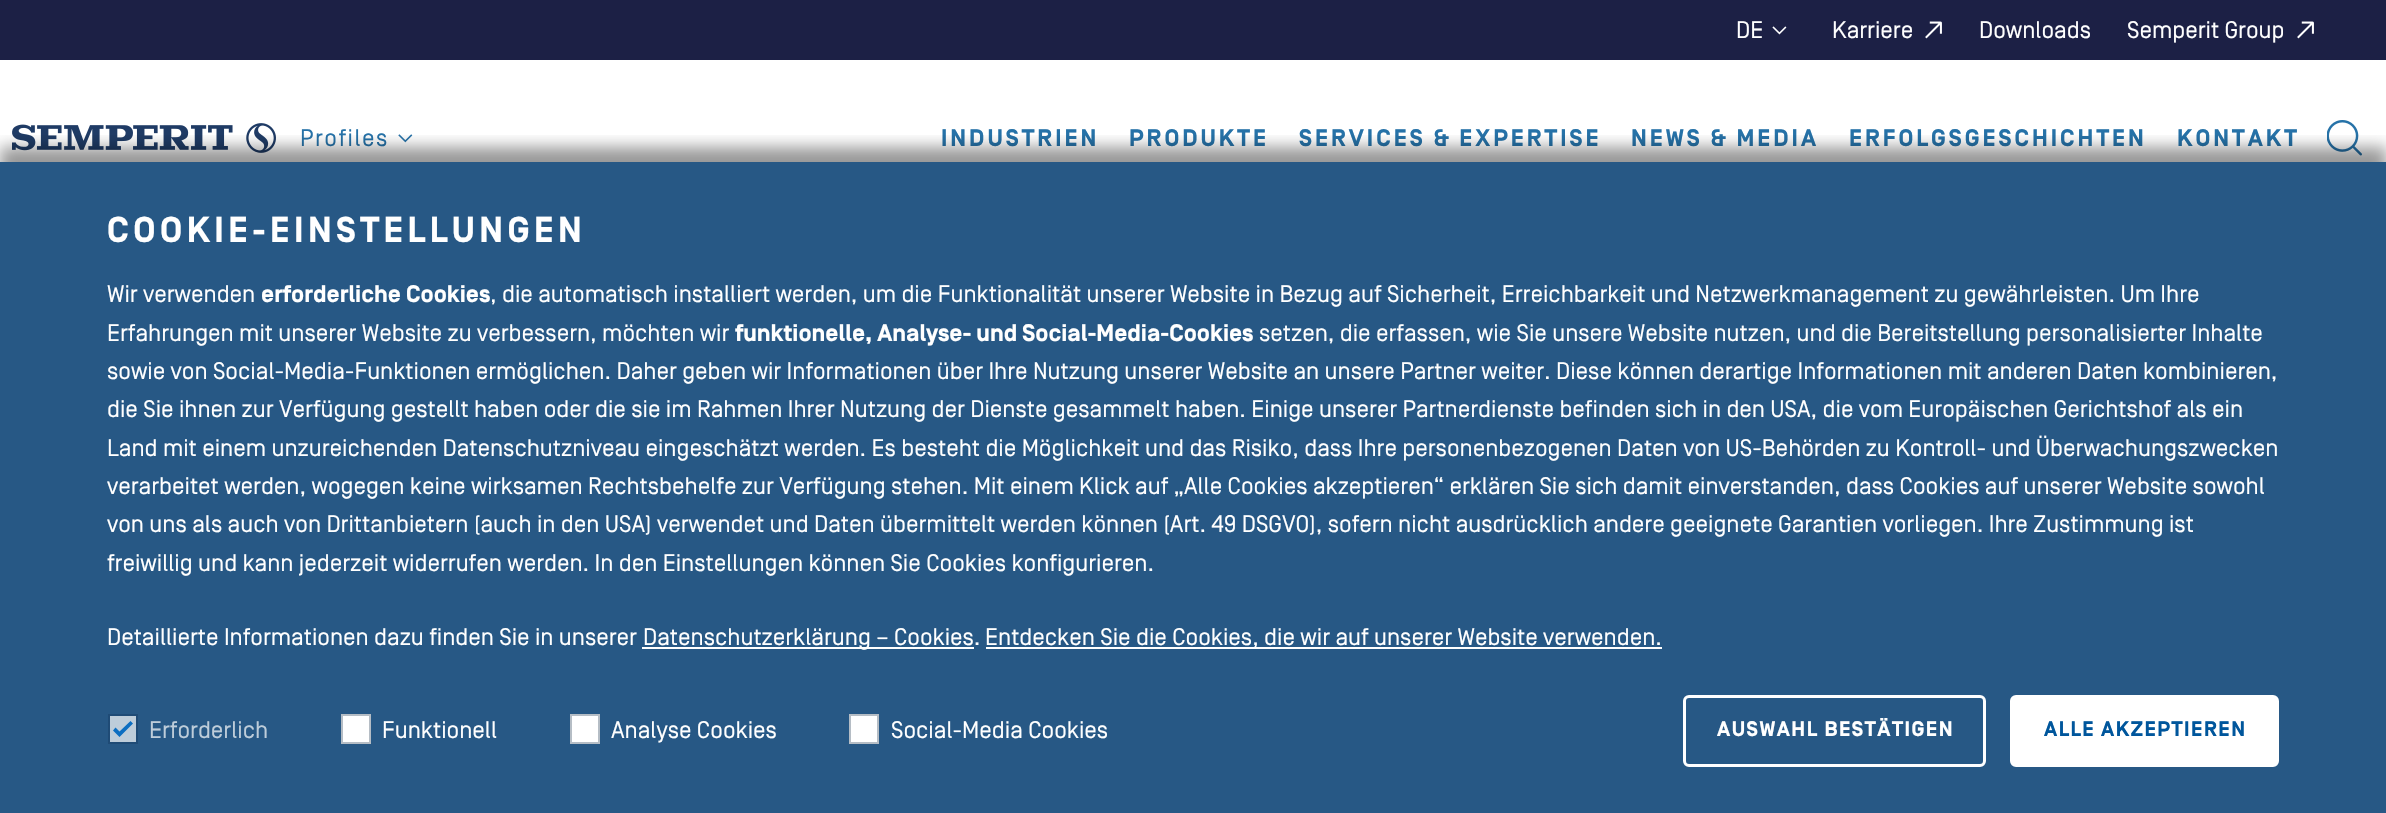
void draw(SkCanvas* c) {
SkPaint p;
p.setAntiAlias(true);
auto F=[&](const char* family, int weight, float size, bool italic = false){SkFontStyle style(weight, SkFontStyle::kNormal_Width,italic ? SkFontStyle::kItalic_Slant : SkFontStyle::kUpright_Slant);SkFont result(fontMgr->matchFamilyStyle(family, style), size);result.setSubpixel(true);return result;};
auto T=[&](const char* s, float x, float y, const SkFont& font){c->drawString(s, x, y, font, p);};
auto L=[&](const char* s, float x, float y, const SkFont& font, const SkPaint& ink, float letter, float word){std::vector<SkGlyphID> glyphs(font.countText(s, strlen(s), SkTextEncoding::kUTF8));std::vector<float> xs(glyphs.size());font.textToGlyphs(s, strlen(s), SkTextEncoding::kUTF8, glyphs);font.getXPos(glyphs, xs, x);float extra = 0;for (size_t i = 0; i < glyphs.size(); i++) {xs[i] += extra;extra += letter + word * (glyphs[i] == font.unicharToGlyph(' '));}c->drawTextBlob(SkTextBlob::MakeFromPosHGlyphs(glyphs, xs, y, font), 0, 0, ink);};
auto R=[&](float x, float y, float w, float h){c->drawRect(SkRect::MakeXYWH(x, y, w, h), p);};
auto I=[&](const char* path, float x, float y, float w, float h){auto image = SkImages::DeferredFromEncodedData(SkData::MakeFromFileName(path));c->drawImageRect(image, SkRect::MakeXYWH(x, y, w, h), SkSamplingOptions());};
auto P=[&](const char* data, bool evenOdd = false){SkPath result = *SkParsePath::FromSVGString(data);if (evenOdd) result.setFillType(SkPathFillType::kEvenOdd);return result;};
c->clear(0xff275885);
p.setColor(0xffffffff);
R(0,60,2386,102);
p.setColor(0xff1c2045);
R(0,0,2386,60);
I("1.png",12,123,264,30);
auto f1 = F("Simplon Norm",400,24);
p.setColor(0xff2672a8);
L("Profiles",300,146,f1,p,1.5,0);
I("2.png",398,134,15,9);
p.setColor(0xffffffff);
T("DE",1736,38,f1);
I("3.png",1772,26,15,9);
T("Karriere",1832,38,f1);
I("4.png",1925,21,17,18);
T("Downloads",1979,38,f1);
T("Semperit Group",2127,38,f1);
I("4.png",2297,21,17,18);
auto f2 = F("Simplon Norm",700,24);
p.setColor(0xff2672a8);
L("INDUSTRIEN",941,146,f2,p,3,0);
L("PRODUKTE",1129,146,f2,p,3,0);
L("SERVICES & EXPERTISE",1299,146,f2,p,3,0);
L("NEWS & MEDIA",1631,146,f2,p,3,0);
L("ERFOLGSGESCHICHTEN",1849,146,f2,p,3,0);
L("KONTAKT",2177,146,f2,p,3,0);
I("5.png",2327,120,35,36);
c->save();
c->clipRect(SkRect::MakeXYWH(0,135,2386,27));
p.setColor(0x66000000);
p.setMaskFilter(SkMaskFilter::MakeBlur(kNormal_SkBlurStyle, 7.5));
c->drawRect(SkRect::MakeXYWH(0,147,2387,651),p);
p.setMaskFilter(nullptr);
c->restore();
auto f3 = F("Simplon Norm",700,36);
p.setColor(0xffffffff);
L("COOKIE-EINSTELLUNGEN",107,242,f3,p,4.5,0);
T("Wir verwenden",107,302,f1);
T("erforderliche Cookies",261,302,f2);
T(", die automatisch installiert werden, um die Funktionalität unserer Website in Bezug auf Sicherheit, Erreichbarkeit und Netzwerkmanagement zu gewährleisten. Um Ihre",490,302,f1);
T("Erfahrungen mit unserer Website zu verbessern, möchten wir",107,341,f1);
T("funktionelle, Analyse- und Social-Media-Cookies",735,341,f2);
T("setzen, die erfassen, wie Sie unsere Website nutzen, und die Bereitstellung personalisierter Inhalte",1259,341,f1);
T("sowie von Social-Media-Funktionen ermöglichen. Daher geben wir Informationen über Ihre Nutzung unserer Website an unsere Partner weiter. Diese können derartige Informationen mit anderen Daten kombinieren,",107,379,f1);
T("die Sie ihnen zur Verfügung gestellt haben oder die sie im Rahmen Ihrer Nutzung der Dienste gesammelt haben. Einige unserer Partnerdienste befinden sich in den USA, die vom Europäischen Gerichtshof als ein",107,417,f1);
T("Land mit einem unzureichenden Datenschutzniveau eingeschätzt werden. Es besteht die Möglichkeit und das Risiko, dass Ihre personenbezogenen Daten von US-Behörden zu Kontroll- und Überwachungszwecken",107,456,f1);
T("verarbeitet werden, wogegen keine wirksamen Rechtsbehelfe zur Verfügung stehen. Mit einem Klick auf „Alle Cookies akzeptieren“ erklären Sie sich damit einverstanden, dass Cookies auf unserer Website sowohl",107,494,f1);
T("von uns als auch von Drittanbietern (auch in den USA) verwendet und Daten übermittelt werden können (Art. 49 DSGVO), sofern nicht ausdrücklich andere geeignete Garantien vorliegen. Ihre Zustimmung ist",107,532,f1);
T("freiwillig und kann jederzeit widerrufen werden. In den Einstellungen können Sie Cookies konfigurieren.",107,571,f1);
T("Detaillierte Informationen dazu finden Sie in unserer",107,645,f1);
R(642,647,332,2);
T("Datenschutzerklärung – Cookies.",643,645,f1);
R(986,647,676,2);
T("Entdecken Sie die Cookies, die wir auf unserer Website verwenden.",985,645,f1);
p.setColor(0xffbecdda);
R(110,716,26,26);
p.setColor(0xff0c6ec1);
c->drawPath(P("M119.5 737l-6.5-6.5l2.5-3l4 4l11-10.5l2.5 2.5z",true),p);
p.setStroke(true);
p.setStrokeWidth(2);
p.setColor(0xff1f4b76);
c->drawRect(SkRect::MakeXYWH(109,715,28,28),p);
p.setStroke(false);
p.setColor(0xffbecdda);
T("Erforderlich",149,738,f1);
p.setColor(0xffffffff);
c->drawRect(SkRect::MakeXYWH(342,715,28,28),p);
p.setStroke(true);
p.setColor(0xffb5bdc5);
c->drawRect(SkRect::MakeXYWH(342,715,28,28),p);
p.setStroke(false);
p.setColor(0xffffffff);
T("Funktionell",382,738,f1);
c->drawRect(SkRect::MakeXYWH(571,715,28,28),p);
p.setStroke(true);
p.setColor(0xffb5bdc5);
c->drawRect(SkRect::MakeXYWH(571,715,28,28),p);
p.setStroke(false);
p.setColor(0xffffffff);
T("Analyse Cookies",611,738,f1);
c->drawRect(SkRect::MakeXYWH(850,715,28,28),p);
p.setStroke(true);
p.setColor(0xffb5bdc5);
c->drawRect(SkRect::MakeXYWH(850,715,28,28),p);
p.setStroke(false);
p.setColor(0xffffffff);
T("Social-Media Cookies",891,738,f1);
p.setStroke(true);
p.setStrokeWidth(3);
c->drawRoundRect(SkRect::MakeXYWH(1684.5,696.5,300,69),4.5,4.5,p);
auto f4 = F("Simplon Norm",700,21);
p.setStroke(false);
L("AUSWAHL BESTÄTIGEN",1717,736,f4,p,1.5,0);
c->drawRoundRect(SkRect::MakeXYWH(2011.5,696.5,266,69),4.5,4.5,p);
p.setStroke(true);
c->drawRoundRect(SkRect::MakeXYWH(2011.5,696.5,266,69),4.5,4.5,p);
p.setStroke(false);
p.setColor(0xff00569c);
L("ALLE AKZEPTIEREN",2044,736,f4,p,1.5,0);
}
